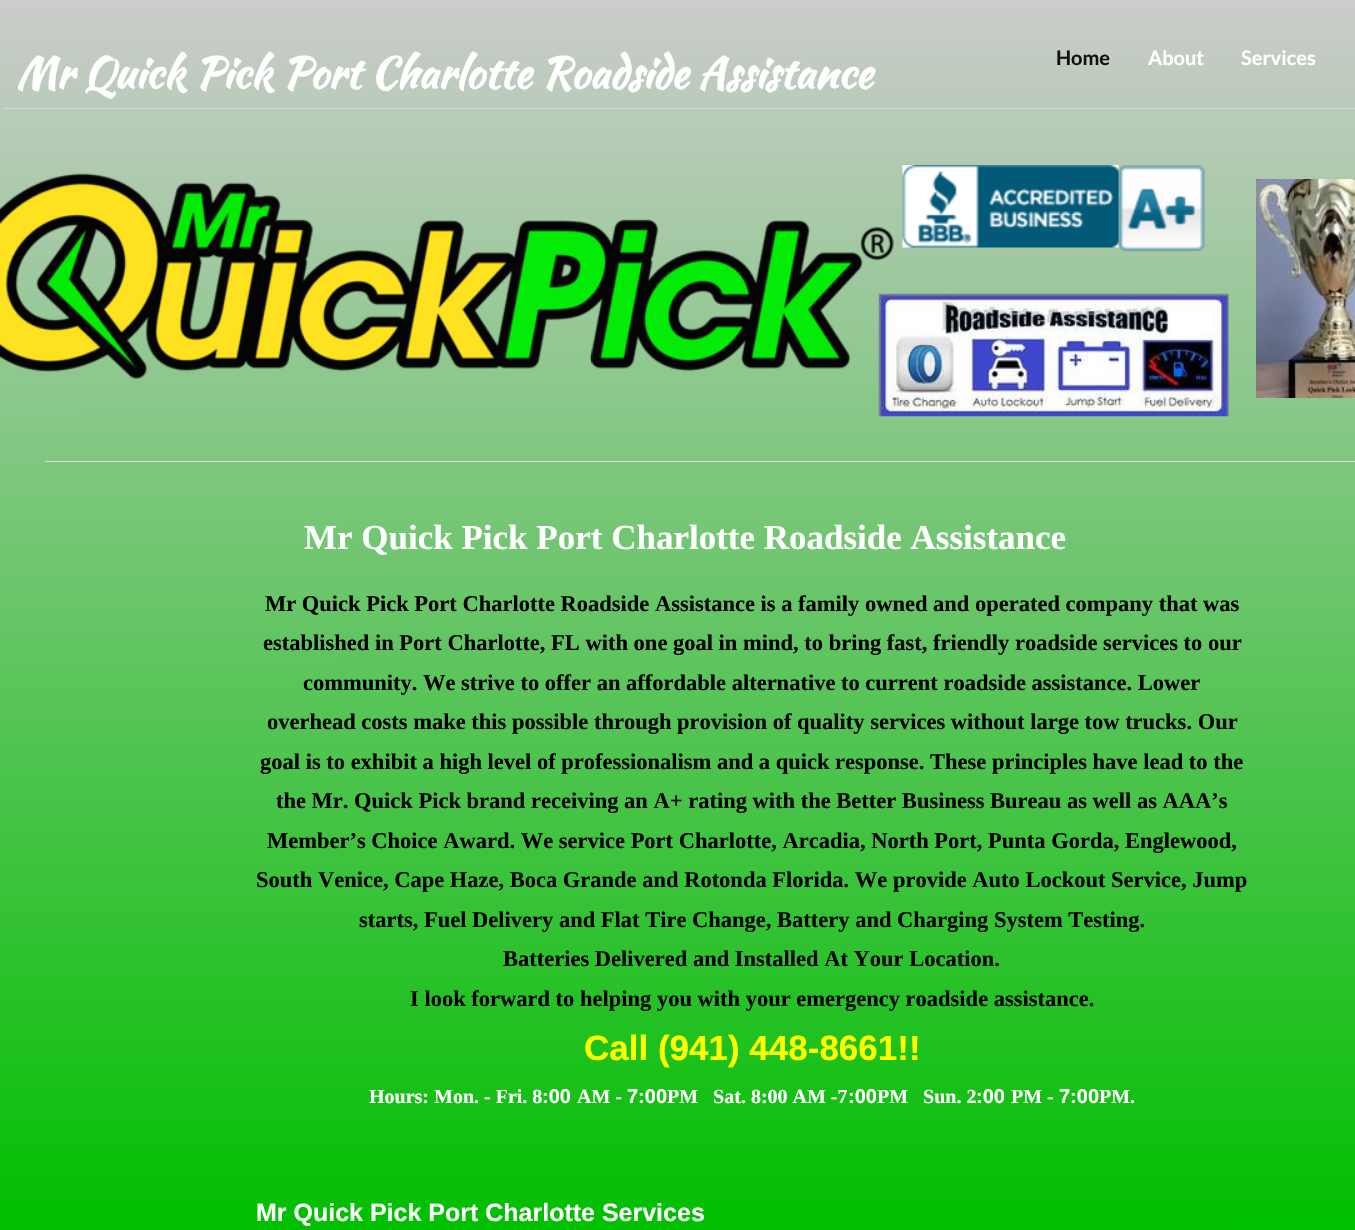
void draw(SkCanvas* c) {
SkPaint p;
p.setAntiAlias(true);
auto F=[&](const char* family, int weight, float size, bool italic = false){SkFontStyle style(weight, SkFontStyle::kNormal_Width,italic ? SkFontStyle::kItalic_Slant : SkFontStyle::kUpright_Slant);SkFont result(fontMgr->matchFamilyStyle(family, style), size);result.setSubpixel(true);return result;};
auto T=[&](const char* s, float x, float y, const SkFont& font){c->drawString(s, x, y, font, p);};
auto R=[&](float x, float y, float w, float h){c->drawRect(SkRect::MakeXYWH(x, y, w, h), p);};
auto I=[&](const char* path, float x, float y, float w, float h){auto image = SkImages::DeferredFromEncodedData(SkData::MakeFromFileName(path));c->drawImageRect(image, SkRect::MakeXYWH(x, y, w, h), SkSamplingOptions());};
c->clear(0xffffffff);
{
const SkColor colors[] = {0xffcccccc,0xff00bf00};
const float stops[] = {0,1};
const SkPoint ends[] = {{677,0}, {678,1230}};
p.setShader(SkGradientShader::MakeLinear(ends, colors, stops, 2, SkTileMode::kClamp));
p.setAlpha(255);
}
R(0,0,1355,1230);
auto f1 = F("Kaushan Script",700,42.5);
p.setShader(nullptr);
p.setColor(0xffffffff);
T("Mr Quick Pick Port Charlotte Roadside Assistance",16,88,f1);
auto f2 = F("Lato",700,20);
p.setColor(0xff111111);
T("Home",1056,65,f2);
p.setColor(0xffffffff);
T("About",1148,65,f2);
T("Services",1241,65,f2);
p.setColor(0xffdadada);
R(4,108,1351,1);
I("5.png",878,293,351,124);
I("1.png",0,173,894,206);
I("2.png",902,165,217,83);
I("3.png",1118,165,87,87);
I("4.png",1256,179,99,219);
R(45,461,1310,1);
auto f3 = F("Liberation Serif",700,35);
p.setColor(0xffffffff);
T("Mr Quick Pick Port Charlotte Roadside Assistance",304,549,f3);
auto f4 = F("Liberation Serif",700,22.5);
p.setColor(0xff000000);
T("Mr Quick Pick Port Charlotte Roadside Assistance is a family owned and operated company that was",265,611,f4);
T("established in Port Charlotte, FL with one goal in mind, to bring fast, friendly roadside services to our",263,650,f4);
T("community. We strive to offer an affordable alternative to current roadside assistance. Lower",303,690,f4);
T("overhead costs make this possible through provision of quality services without large tow trucks. Our",267,729,f4);
T("goal is to exhibit a high level of professionalism and a quick response. These principles have lead to the",260,769,f4);
T("the Mr. Quick Pick brand receiving an A+ rating with the Better Business Bureau as well as AAA’s",276,808,f4);
T("Member’s Choice Award. We service Port Charlotte, Arcadia, North Port, Punta Gorda, Englewood,",267,848,f4);
T("South Venice, Cape Haze, Boca Grande and Rotonda Florida. We provide Auto Lockout Service, Jump",256,887,f4);
T("starts, Fuel Delivery and Flat Tire Change, Battery and Charging System Testing.",359,927,f4);
T("Batteries Delivered and Installed At Your Location.",503,966,f4);
T("I look forward to helping you with your emergency roadside assistance.",410,1006,f4);
auto f5 = F("Liberation Sans",700,35);
p.setColor(0xffffff00);
T("Call (941) 448-8661!!",584,1060,f5);
auto f6 = F("Liberation Serif",700,20);
p.setColor(0xffffffff);
T("Hours: Mon. - Fri. 8",369,1103,f6);
auto f7 = F("Liberation Sans",700,20);
T(":00",542,1103,f7);
T("AM -",577,1103,f6);
T("7:00",627,1103,f7);
T("PM   Sat. 8:00 AM -7",667,1103,f6);
T(":00",848,1103,f7);
T("PM   Sun. 2",877,1103,f6);
T(":00",976,1103,f7);
T("PM -",1011,1103,f6);
T("7:00",1059,1103,f7);
T("PM.",1099,1103,f6);
auto f8 = F("Liberation Sans",700,25);
T("Mr Quick Pick Port Charlotte Services",256,1221,f8);
}
